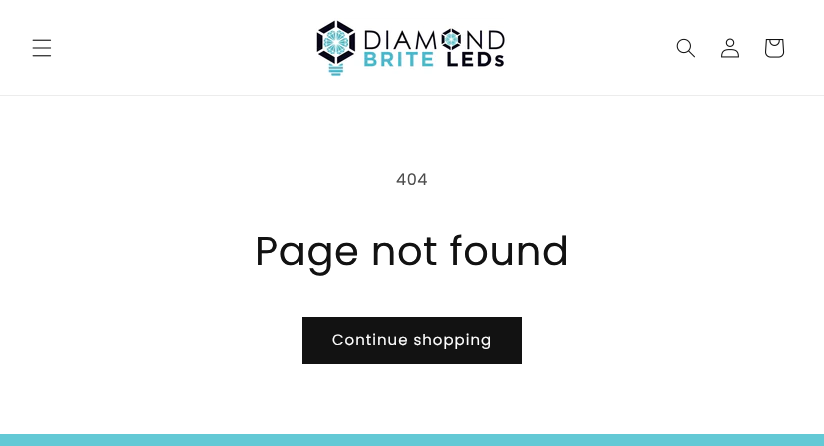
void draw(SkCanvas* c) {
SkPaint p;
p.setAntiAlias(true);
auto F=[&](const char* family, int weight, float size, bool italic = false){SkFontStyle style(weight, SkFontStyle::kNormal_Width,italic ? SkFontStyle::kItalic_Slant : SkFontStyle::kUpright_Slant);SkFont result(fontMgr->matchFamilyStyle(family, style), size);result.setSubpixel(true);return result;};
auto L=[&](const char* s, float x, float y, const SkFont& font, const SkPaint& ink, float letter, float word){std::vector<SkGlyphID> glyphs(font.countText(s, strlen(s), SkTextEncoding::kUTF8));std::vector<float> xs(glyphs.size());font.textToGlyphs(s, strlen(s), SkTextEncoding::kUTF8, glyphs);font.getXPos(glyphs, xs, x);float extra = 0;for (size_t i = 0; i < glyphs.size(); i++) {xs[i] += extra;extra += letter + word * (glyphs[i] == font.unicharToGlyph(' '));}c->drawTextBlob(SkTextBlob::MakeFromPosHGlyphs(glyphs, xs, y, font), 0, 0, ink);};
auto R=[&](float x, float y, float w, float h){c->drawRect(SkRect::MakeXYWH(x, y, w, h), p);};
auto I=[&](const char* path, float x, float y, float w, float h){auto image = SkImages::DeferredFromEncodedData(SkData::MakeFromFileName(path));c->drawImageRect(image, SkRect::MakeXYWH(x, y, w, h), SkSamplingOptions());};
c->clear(0xffffffff);
p.setColor(0xffececec);
R(0,95,824,1);
I("1.png",32,39,20,18);
I("2.png",316,18,191,59);
I("3.png",676,38,19,20);
I("4.png",721,38,18,20);
I("5.png",765,39,20,19);
auto f1 = F("Poppins",400,16);
p.setColor(0xff4d4d4d);
L("404",396,185,f1,p,.6,0);
auto f2 = F("Poppins",400,40);
p.setColor(0xff121212);
L("Page not found",255,265,f2,p,.6,0);
R(302,317,220,47);
auto f3 = F("Poppins",400,15);
p.setColor(0xffffffff);
L("Continue shopping",332,345,f3,p,1,0);
p.setColor(0xff63c9d5);
R(0,434,824,12);
}
